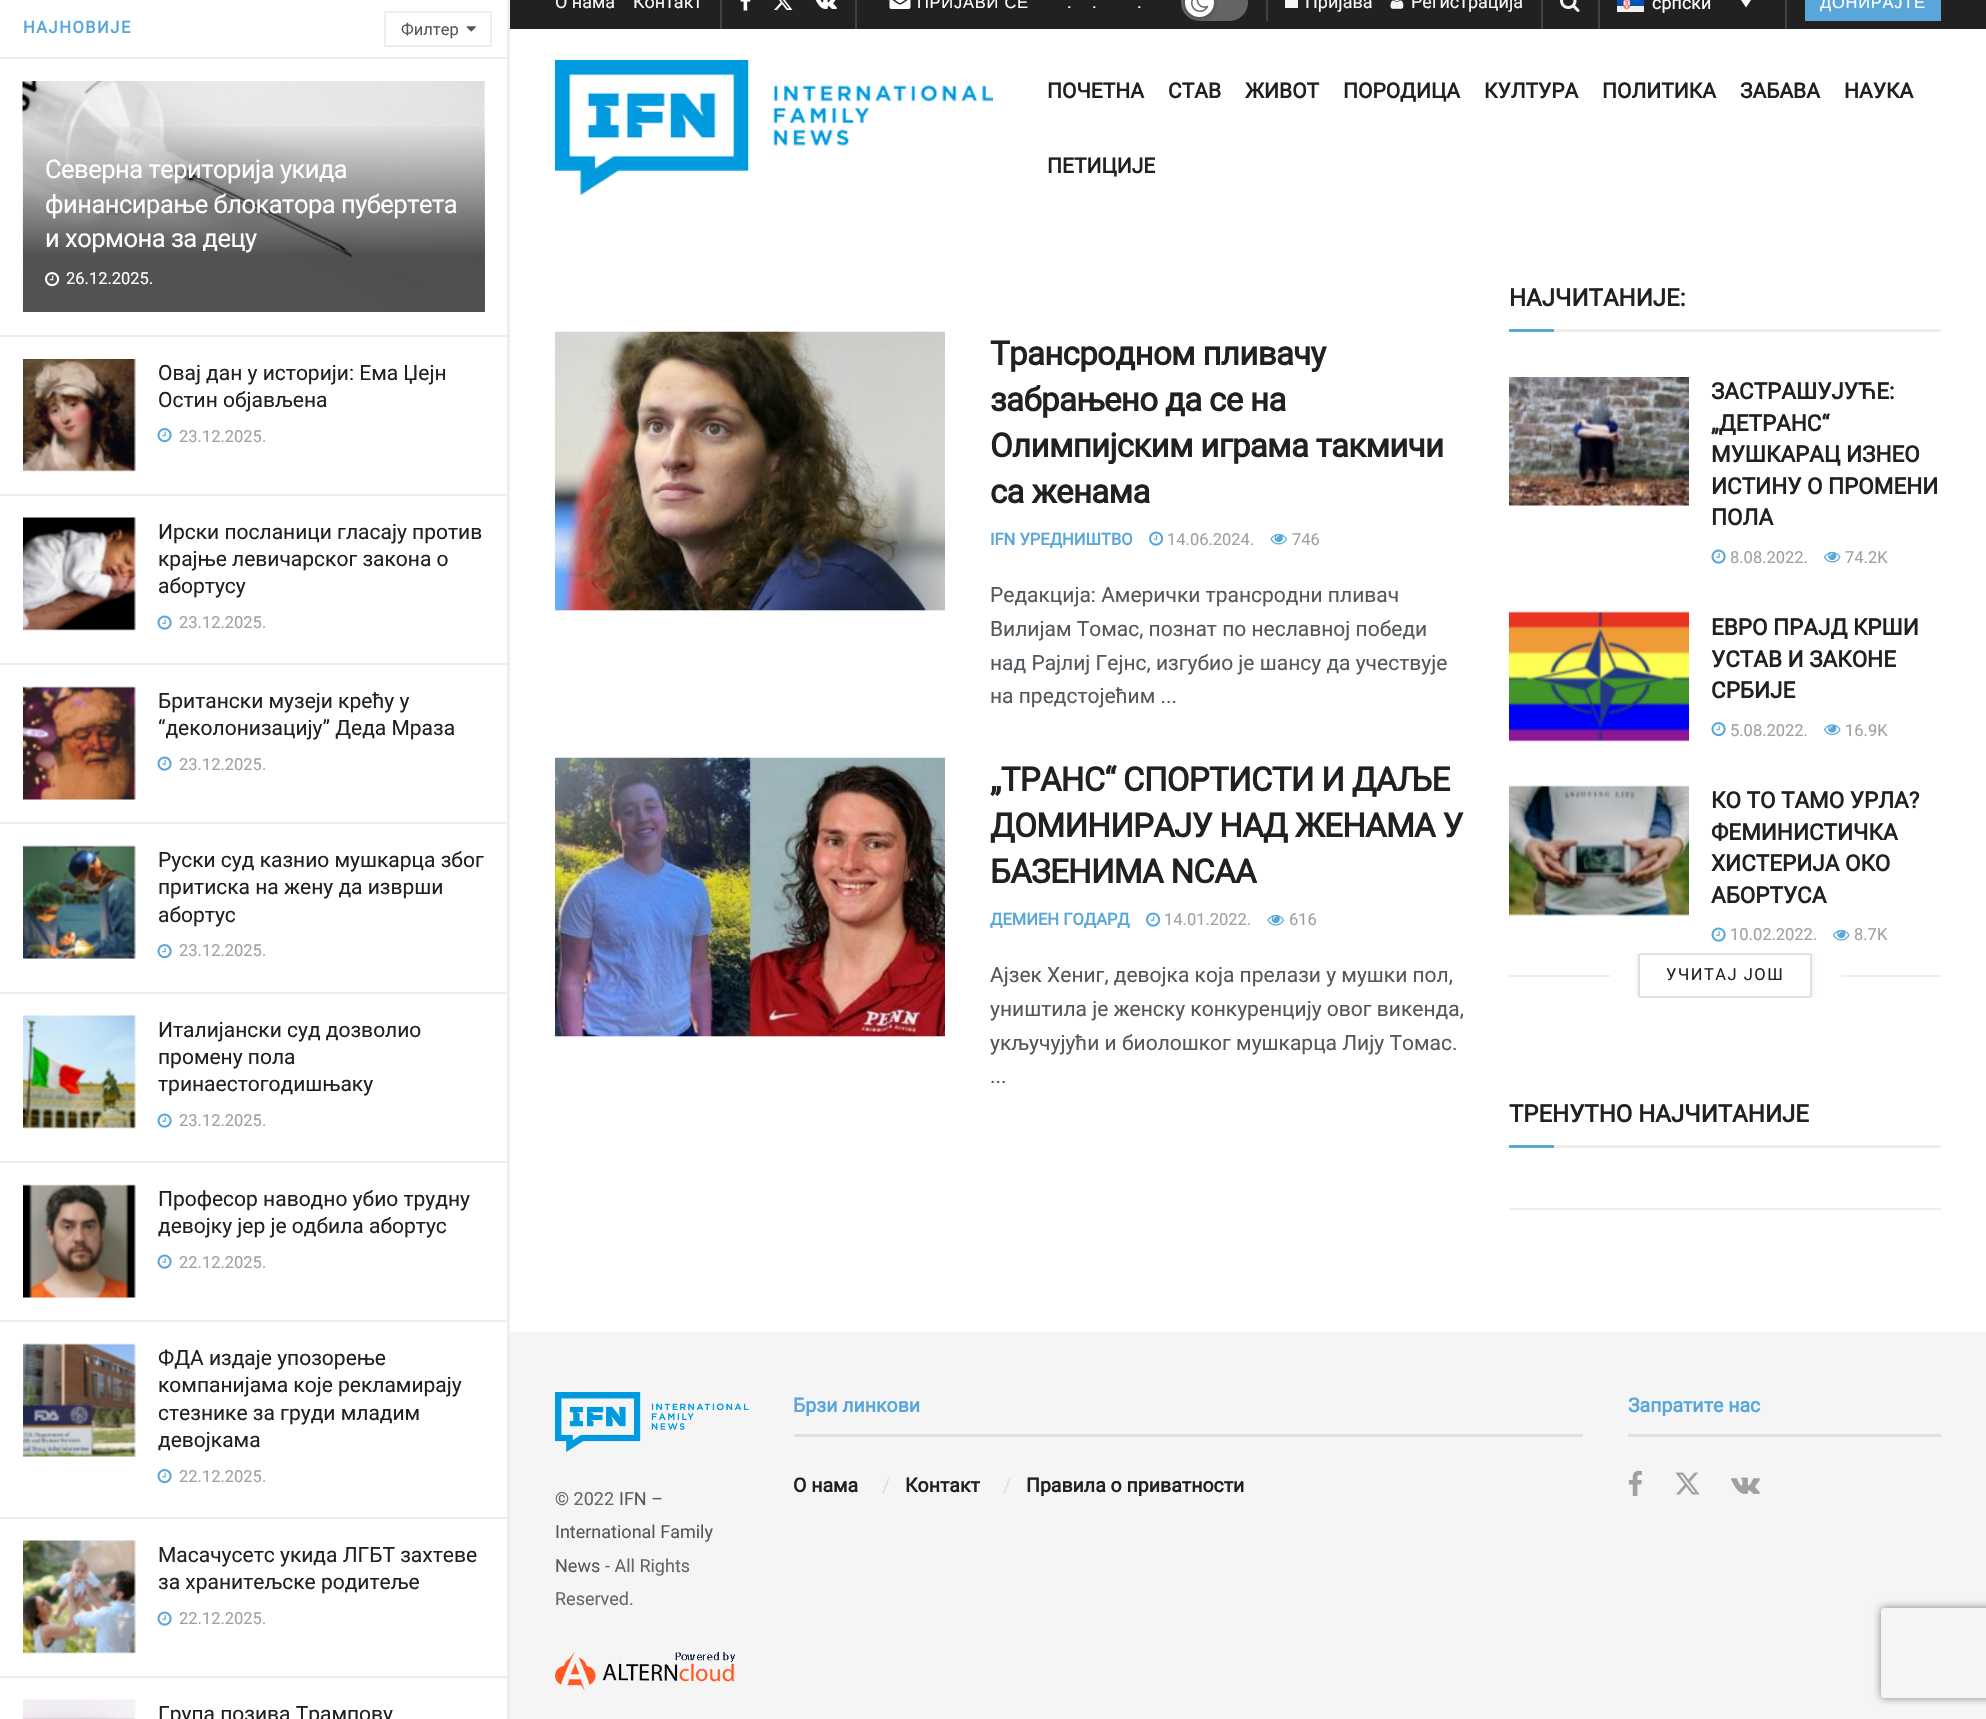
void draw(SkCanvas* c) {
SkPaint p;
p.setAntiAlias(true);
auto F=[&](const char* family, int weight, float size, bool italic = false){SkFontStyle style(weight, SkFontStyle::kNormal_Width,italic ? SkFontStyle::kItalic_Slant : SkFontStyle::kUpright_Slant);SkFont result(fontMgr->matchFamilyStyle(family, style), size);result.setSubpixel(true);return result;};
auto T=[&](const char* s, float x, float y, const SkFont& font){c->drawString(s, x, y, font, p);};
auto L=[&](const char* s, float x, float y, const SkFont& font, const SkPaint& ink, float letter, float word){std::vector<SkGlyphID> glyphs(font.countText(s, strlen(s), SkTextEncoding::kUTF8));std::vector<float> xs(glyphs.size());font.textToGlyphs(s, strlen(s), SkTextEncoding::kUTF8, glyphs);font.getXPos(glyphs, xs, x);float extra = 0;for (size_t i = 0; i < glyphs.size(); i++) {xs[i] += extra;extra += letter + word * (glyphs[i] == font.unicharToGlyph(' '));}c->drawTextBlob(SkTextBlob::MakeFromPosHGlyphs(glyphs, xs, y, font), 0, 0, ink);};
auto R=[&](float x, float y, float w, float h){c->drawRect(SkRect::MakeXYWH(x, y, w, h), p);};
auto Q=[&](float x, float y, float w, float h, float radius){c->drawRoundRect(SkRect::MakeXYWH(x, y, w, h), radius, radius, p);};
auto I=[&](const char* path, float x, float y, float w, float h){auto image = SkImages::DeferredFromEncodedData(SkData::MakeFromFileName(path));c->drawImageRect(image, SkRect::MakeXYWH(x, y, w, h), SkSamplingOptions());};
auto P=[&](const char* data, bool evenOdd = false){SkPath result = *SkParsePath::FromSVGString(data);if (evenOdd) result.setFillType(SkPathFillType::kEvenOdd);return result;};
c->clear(0xffffffff);
p.setColor(0xffeeeeee);
R(507,0,3,1719);
R(0,57,507,2);
auto f1 = F("Roboto",700,16.5);
p.setColor(0xff59a7da);
L("НАЈНОВИЈЕ",23,33,f1,p,1.5,0);
p.setStroke(true);
p.setStrokeWidth(2);
p.setColor(0xffeeeeee);
c->drawRect(SkRect::MakeXYWH(385,12,106,34),p);
auto f2 = F("Roboto",400,16.5);
p.setStroke(false);
p.setColor(0xff53585c);
T("Филтер",401,35,f2);
I("1.png",466,26,10,6);
p.setColor(0xffeeeeee);
R(0,335,507,2);
I("2.png",22,81,463,231);
I("3.png",22,81,463,231);
{
const SkColor colors[] = {0x00000000,0xa6000000};
const float stops[] = {0,.7};
const SkPoint ends[] = {{254,123}, {254,312}};
p.setShader(SkGradientShader::MakeLinear(ends, colors, stops, 2, SkTileMode::kClamp));
p.setAlpha(255);
}
R(23,127,462,185);
auto f3 = F("Roboto",400,25.5);
p.setShader(nullptr);
p.setColor(0xffffffff);
L("Северна територија укида",45,178,f3,p,-.5,0);
L("финансирање блокатора пубертета",45,213,f3,p,-.5,0);
L("и хормона за децу",45,247,f3,p,-.5,0);
I("4.png",45,272,15,15);
T("26.12.2025.",66,284,f2);
p.setColor(0xffeeeeee);
R(0,494,507,2);
p.setColor(0xfff7f7f7);
R(23,359,112,112);
I("6.png",134,359,2,111);
I("5.png",23,359,113,113);
auto f4 = F("Roboto",400,21);
p.setColor(0xff212121);
T("Овај дан у историји: Ема Џејн",158,380,f4);
T("Остин објављена",158,407,f4);
I("7.png",157,428,15,15);
p.setColor(0xffa0a0a0);
T("23.12.2025.",179,442,f2);
p.setColor(0xffeeeeee);
R(0,663,507,2);
p.setColor(0xfff7f7f7);
R(23,518,112,112);
I("9.png",123,517,13,112);
I("8.png",23,517,113,114);
p.setColor(0xff212121);
T("Ирски посланици гласају против",158,539,f4);
T("крајње левичарског закона о",158,566,f4);
T("абортусу",158,593,f4);
I("10.png",157,615,15,15);
p.setColor(0xffa0a0a0);
T("23.12.2025.",179,628,f2);
p.setColor(0xffeeeeee);
R(0,822,507,2);
p.setColor(0xfff7f7f7);
R(23,687,112,113);
I("6.png",134,688,2,111);
I("11.png",23,686,113,114);
p.setColor(0xff212121);
T("Британски музеји крећу у",158,708,f4);
T("“деколонизацију” Деда Мраза",158,735,f4);
I("10.png",157,756,15,15);
p.setColor(0xffa0a0a0);
T("23.12.2025.",179,770,f2);
p.setColor(0xffeeeeee);
R(0,992,507,2);
p.setColor(0xfff7f7f7);
R(23,846,112,113);
I("6.png",134,847,2,111);
I("12.png",23,845,113,114);
p.setColor(0xff212121);
T("Руски суд казнио мушкарца због",158,867,f4);
T("притиска на жену да изврши",158,894,f4);
T("абортус",158,922,f4);
I("7.png",157,944,15,15);
p.setColor(0xffa0a0a0);
T("23.12.2025.",179,956,f2);
p.setColor(0xffeeeeee);
R(0,1161,507,2);
p.setColor(0xfff7f7f7);
R(23,1016,112,112);
I("9.png",123,1015,13,112);
I("13.png",23,1015,113,114);
p.setColor(0xff212121);
T("Италијански суд дозволио",158,1037,f4);
T("промену пола",158,1064,f4);
T("тринаестогодишњаку",158,1091,f4);
I("10.png",157,1113,15,15);
p.setColor(0xffa0a0a0);
T("23.12.2025.",179,1126,f2);
p.setColor(0xffeeeeee);
R(0,1320,507,2);
p.setColor(0xfff7f7f7);
R(23,1185,112,113);
I("6.png",134,1186,2,111);
I("14.png",23,1184,113,114);
p.setColor(0xff212121);
T("Професор наводно убио трудну",158,1206,f4);
T("девојку јер је одбила абортус",158,1233,f4);
I("10.png",157,1254,15,15);
p.setColor(0xffa0a0a0);
T("22.12.2025.",179,1268,f2);
p.setColor(0xffeeeeee);
R(0,1517,507,2);
p.setColor(0xfff7f7f7);
R(23,1344,112,113);
I("6.png",134,1345,2,111);
I("15.png",23,1343,113,114);
p.setColor(0xff212121);
T("ФДА издаје упозорење",158,1365,f4);
T("компанијама које рекламирају",158,1392,f4);
T("стезнике за груди младим",158,1420,f4);
T("девојкама",158,1447,f4);
I("7.png",157,1469,15,15);
p.setColor(0xffa0a0a0);
T("22.12.2025.",179,1482,f2);
p.setColor(0xffeeeeee);
R(0,1676,507,2);
p.setColor(0xfff7f7f7);
R(23,1541,112,112);
I("9.png",123,1540,13,112);
I("16.png",23,1540,113,114);
p.setColor(0xff212121);
T("Масачусетс укида ЛГБТ захтеве",158,1562,f4);
T("за хранитељске родитеље",158,1589,f4);
I("10.png",157,1611,15,15);
p.setColor(0xffa0a0a0);
T("22.12.2025.",179,1624,f2);
I("18.png",123,1699,13,20);
I("17.png",23,1699,113,20);
p.setColor(0xff212121);
T("Група позива Трампову",158,1721,f4);
R(510,0,1476,29);
p.setColor(0xff424242);
R(855,0,2,29);
R(720,0,2,29);
auto f5 = F("Roboto",400,18);
p.setColor(0xfff5f5f5);
T("О нама",555,8,f5);
T("Контакт",633,8,f5);
I("19.png",740,0,11,11);
I("20.png",774,0,19,10);
I("21.png",815,0,22,9);
I("22.png",889,0,22,9);
auto f6 = F("Liberation Sans",400,16.5);
p.setColor(0xffffffff);
L("ПРИЈАВИ СЕ",917,8,f6,p,.75,0);
p.setColor(0xfff5f5f5);
T(".",1067,8,f5);
T(".",1092,8,f5);
T(".",1137,8,f5);
p.setColor(0xff424242);
R(1266,0,2,21);
p.setColor(0xff646464);
Q(1181,-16,67,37,18.5);
p.setColor(0x4d000000);
p.setMaskFilter(SkMaskFilter::MakeBlur(kNormal_SkBlurStyle, 2));
c->drawRoundRect(SkRect::MakeXYWH(1185,-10,29,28),14,14,p);
p.setMaskFilter(nullptr);
p.setColor(0xffffffff);
c->drawCircle(1199.5,2.5,14.5,p);
I("23.png",1191,0,18,12);
p.setColor(0xff424242);
R(1541,0,2,29);
p.setColor(0xfff5f5f5);
R(1285,0,13,8);
T("Пријава",1305,8,f5);
I("24.png",1390,0,14,9);
T("Регистрација",1411,8,f5);
p.setColor(0xff424242);
R(1598,0,2,29);
I("25.png",1560,0,20,12);
R(1785,0,2,29);
I("26.png",1617,0,27,12);
p.setColor(0xffffffff);
T("српски",1652,9,f5);
c->drawPath(P("M1740-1.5h12l-6 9z"),p);
p.setColor(0xff59a7da);
R(1805,0,136,21);
p.setColor(0xffffffff);
L("ДОНИРАЈТЕ",1820,8,f6,p,.75,0);
I("27.png",555,60,438,135);
auto f7 = F("Roboto",700,21);
p.setColor(0xff212121);
T("ПОЧЕТНА",1047,98,f7);
T("СТАВ",1168,98,f7);
T("ЖИВОТ",1245,98,f7);
T("ПОРОДИЦА",1343,98,f7);
T("КУЛТУРА",1484,98,f7);
T("ПОЛИТИКА",1602,98,f7);
T("ЗАБАВА",1740,98,f7);
T("НАУКА",1844,98,f7);
T("ПЕТИЦИЈЕ",1047,173,f7);
p.setColor(0xfff7f7f7);
R(555,610,390,1);
I("29.png",883,331,62,1);
I("28.png",555,331,390,280);
auto f8 = F("Roboto",700,33);
p.setColor(0xff212121);
L("Трансродном пливачу",990,365,f8,p,-.65,0);
L("забрањено да се на",990,411,f8,p,-.65,0);
L("Олимпијским играма такмичи",990,457,f8,p,-.65,0);
L("са женама",990,503,f8,p,-.65,0);
p.setColor(0xff59a7da);
T("IFN УРЕДНИШТВО",990,545,f1);
I("30.png",1149,531,15,15);
p.setColor(0xffa0a0a0);
T("14.06.2024.",1167,545,f2);
I("31.png",1270,533,17,12);
T("746",1292,545,f2);
p.setColor(0xff53585c);
T("Редакција: Амерички трансродни пливач",990,602,f4);
T("Вилијам Томас, познат по неславној победи",990,636,f4);
T("над Рајлиј Гејнс, изгубио је шансу да учествује",990,670,f4);
T("на предстојећим ...",990,703,f4);
p.setColor(0xfff7f7f7);
R(555,1036,390,1);
I("29.png",883,757,62,1);
I("32.png",555,757,390,280);
p.setColor(0xff212121);
L("„ТРАНС“ СПОРТИСТИ И ДАЉЕ",990,791,f8,p,-.65,0);
L("ДОМИНИРАЈУ НАД ЖЕНАМА У",990,837,f8,p,-.65,0);
L("БАЗЕНИМА NCAA",990,883,f8,p,-.65,0);
p.setColor(0xff59a7da);
T("ДЕМИЕН ГОДАРД",990,925,f1);
I("30.png",1146,912,15,15);
p.setColor(0xffa0a0a0);
T("14.01.2022.",1164,925,f2);
I("31.png",1267,914,17,12);
T("616",1289,925,f2);
p.setColor(0xff53585c);
T("Ајзек Хениг, девојка која прелази у мушки пол,",990,982,f4);
T("уништила је женску конкуренцију овог викенда,",990,1016,f4);
T("укључујући и биолошког мушкарца Лију Томас.",990,1050,f4);
T("...",990,1083,f4);
p.setColor(0xffeeeeee);
R(1554,329,387,3);
auto f9 = F("Roboto",700,24);
p.setColor(0xff212121);
T("НАЈЧИТАНИЈЕ:",1509,306,f9);
p.setColor(0xff59a7da);
R(1509,329,45,3);
p.setColor(0xfff7f7f7);
R(1509,505,180,1);
I("34.png",1660,505,29,1);
I("33.png",1509,377,180,129);
auto f10 = F("Roboto",700,22.5);
p.setColor(0xff212121);
T("ЗАСТРАШУЈУЋЕ:",1711,399,f10);
T("„ДЕТРАНС“",1711,431,f10);
T("МУШКАРАЦ ИЗНЕО",1711,462,f10);
T("ИСТИНУ О ПРОМЕНИ",1711,494,f10);
T("ПОЛА",1711,525,f10);
I("10.png",1711,549,15,15);
p.setColor(0xffa0a0a0);
T("8.08.2022.",1730,563,f2);
I("35.png",1824,551,17,12);
T("74.2K",1845,563,f2);
p.setColor(0xfff7f7f7);
R(1509,612,180,129);
I("37.png",1660,612,29,129);
I("36.png",1509,611,180,131);
p.setColor(0xff212121);
T("ЕВРО ПРАЈД КРШИ",1711,635,f10);
T("УСТАВ И ЗАКОНЕ",1711,667,f10);
T("СРБИЈЕ",1711,698,f10);
I("7.png",1711,722,15,15);
p.setColor(0xffa0a0a0);
T("5.08.2022.",1730,736,f2);
I("38.png",1824,724,17,11);
T("16.9K",1845,736,f2);
p.setColor(0xfff7f7f7);
R(1509,786,180,129);
I("40.png",1660,786,29,130);
I("39.png",1509,785,180,131);
p.setColor(0xff212121);
T("КО ТО ТАМО УРЛА?",1711,808,f10);
T("ФЕМИНИСТИЧКА",1711,840,f10);
T("ХИСТЕРИЈА ОКО",1711,871,f10);
T("АБОРТУСА",1711,903,f10);
I("10.png",1711,927,15,15);
p.setColor(0xffa0a0a0);
T("10.02.2022.",1730,940,f2);
I("35.png",1833,929,17,12);
T("8.7K",1854,940,f2);
c->save();
c->clipRect(SkRect::MakeXYWH(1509,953,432,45));
p.setColor(0x1a000000);
p.setMaskFilter(SkMaskFilter::MakeBlur(kNormal_SkBlurStyle, 2));
c->drawRoundRect(SkRect::MakeXYWH(1638,954,174,45),3,3,p);
p.setMaskFilter(nullptr);
c->restore();
p.setColor(0xffffffff);
c->drawRoundRect(SkRect::MakeXYWH(1639,954,172,43),2,2,p);
p.setStroke(true);
p.setColor(0xffe0e0e0);
c->drawRoundRect(SkRect::MakeXYWH(1639,954,172,43),2,2,p);
p.setStroke(false);
p.setColor(0xffeeeeee);
R(1509,975,101,2);
p.setColor(0xff212121);
L("УЧИТАЈ ЈОШ",1666,980,f2,p,1.5,0);
p.setColor(0xffeeeeee);
R(1841,975,100,2);
R(1554,1145,387,3);
p.setColor(0xff212121);
T("ТРЕНУТНО НАЈЧИТАНИЈЕ",1509,1122,f9);
p.setColor(0xff59a7da);
R(1509,1145,45,3);
p.setColor(0xffeeeeee);
R(1509,1208,432,2);
p.setColor(0xfff5f5f5);
R(510,1332,1476,387);
p.setColor(0xffe0e0e0);
R(794,1434,789,3);
auto f11 = F("Roboto",700,19.5);
p.setColor(0xff59a7da);
T("Брзи линкови",793,1412,f11);
p.setColor(0xff212121);
T("О нама",793,1492,f11);
p.setColor(0xffe0e0e0);
T("/",882,1492,f4);
p.setColor(0xff212121);
T("Контакт",905,1492,f11);
p.setColor(0xffe0e0e0);
T("/",1003,1492,f4);
p.setColor(0xff212121);
T("Правила о приватности",1026,1492,f11);
p.setColor(0xffe0e0e0);
R(1628,1434,313,3);
p.setColor(0xff59a7da);
T("Запратите нас",1628,1412,f11);
I("41.png",1628,1470,14,26);
I("42.png",1675,1472,25,23);
I("43.png",1731,1477,29,17);
I("44.png",555,1392,194,60);
p.setColor(0xff666666);
T("© 2022",555,1505,f5);
p.setColor(0xff53585c);
T("IFN –",619,1505,f5);
T("International Family",555,1538,f5);
T("News",555,1572,f5);
p.setColor(0xff666666);
T("- All Rights",605,1572,f5);
T("Reserved.",555,1605,f5);
I("45.png",555,1652,180,39);
c->save();
c->clipPath(P("M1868 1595h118v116h-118zm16 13h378c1.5 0 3 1.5 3 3v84c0 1.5-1.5 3-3 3h-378c-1.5 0-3-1.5-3-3v-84c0-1.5 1.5-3 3-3z",true),true);
p.setColor(0xff808080);
p.setMaskFilter(SkMaskFilter::MakeBlur(kNormal_SkBlurStyle, 4));
c->drawRoundRect(SkRect::MakeXYWH(1881,1608,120,90),3,3,p);
p.setMaskFilter(nullptr);
c->restore();
}
